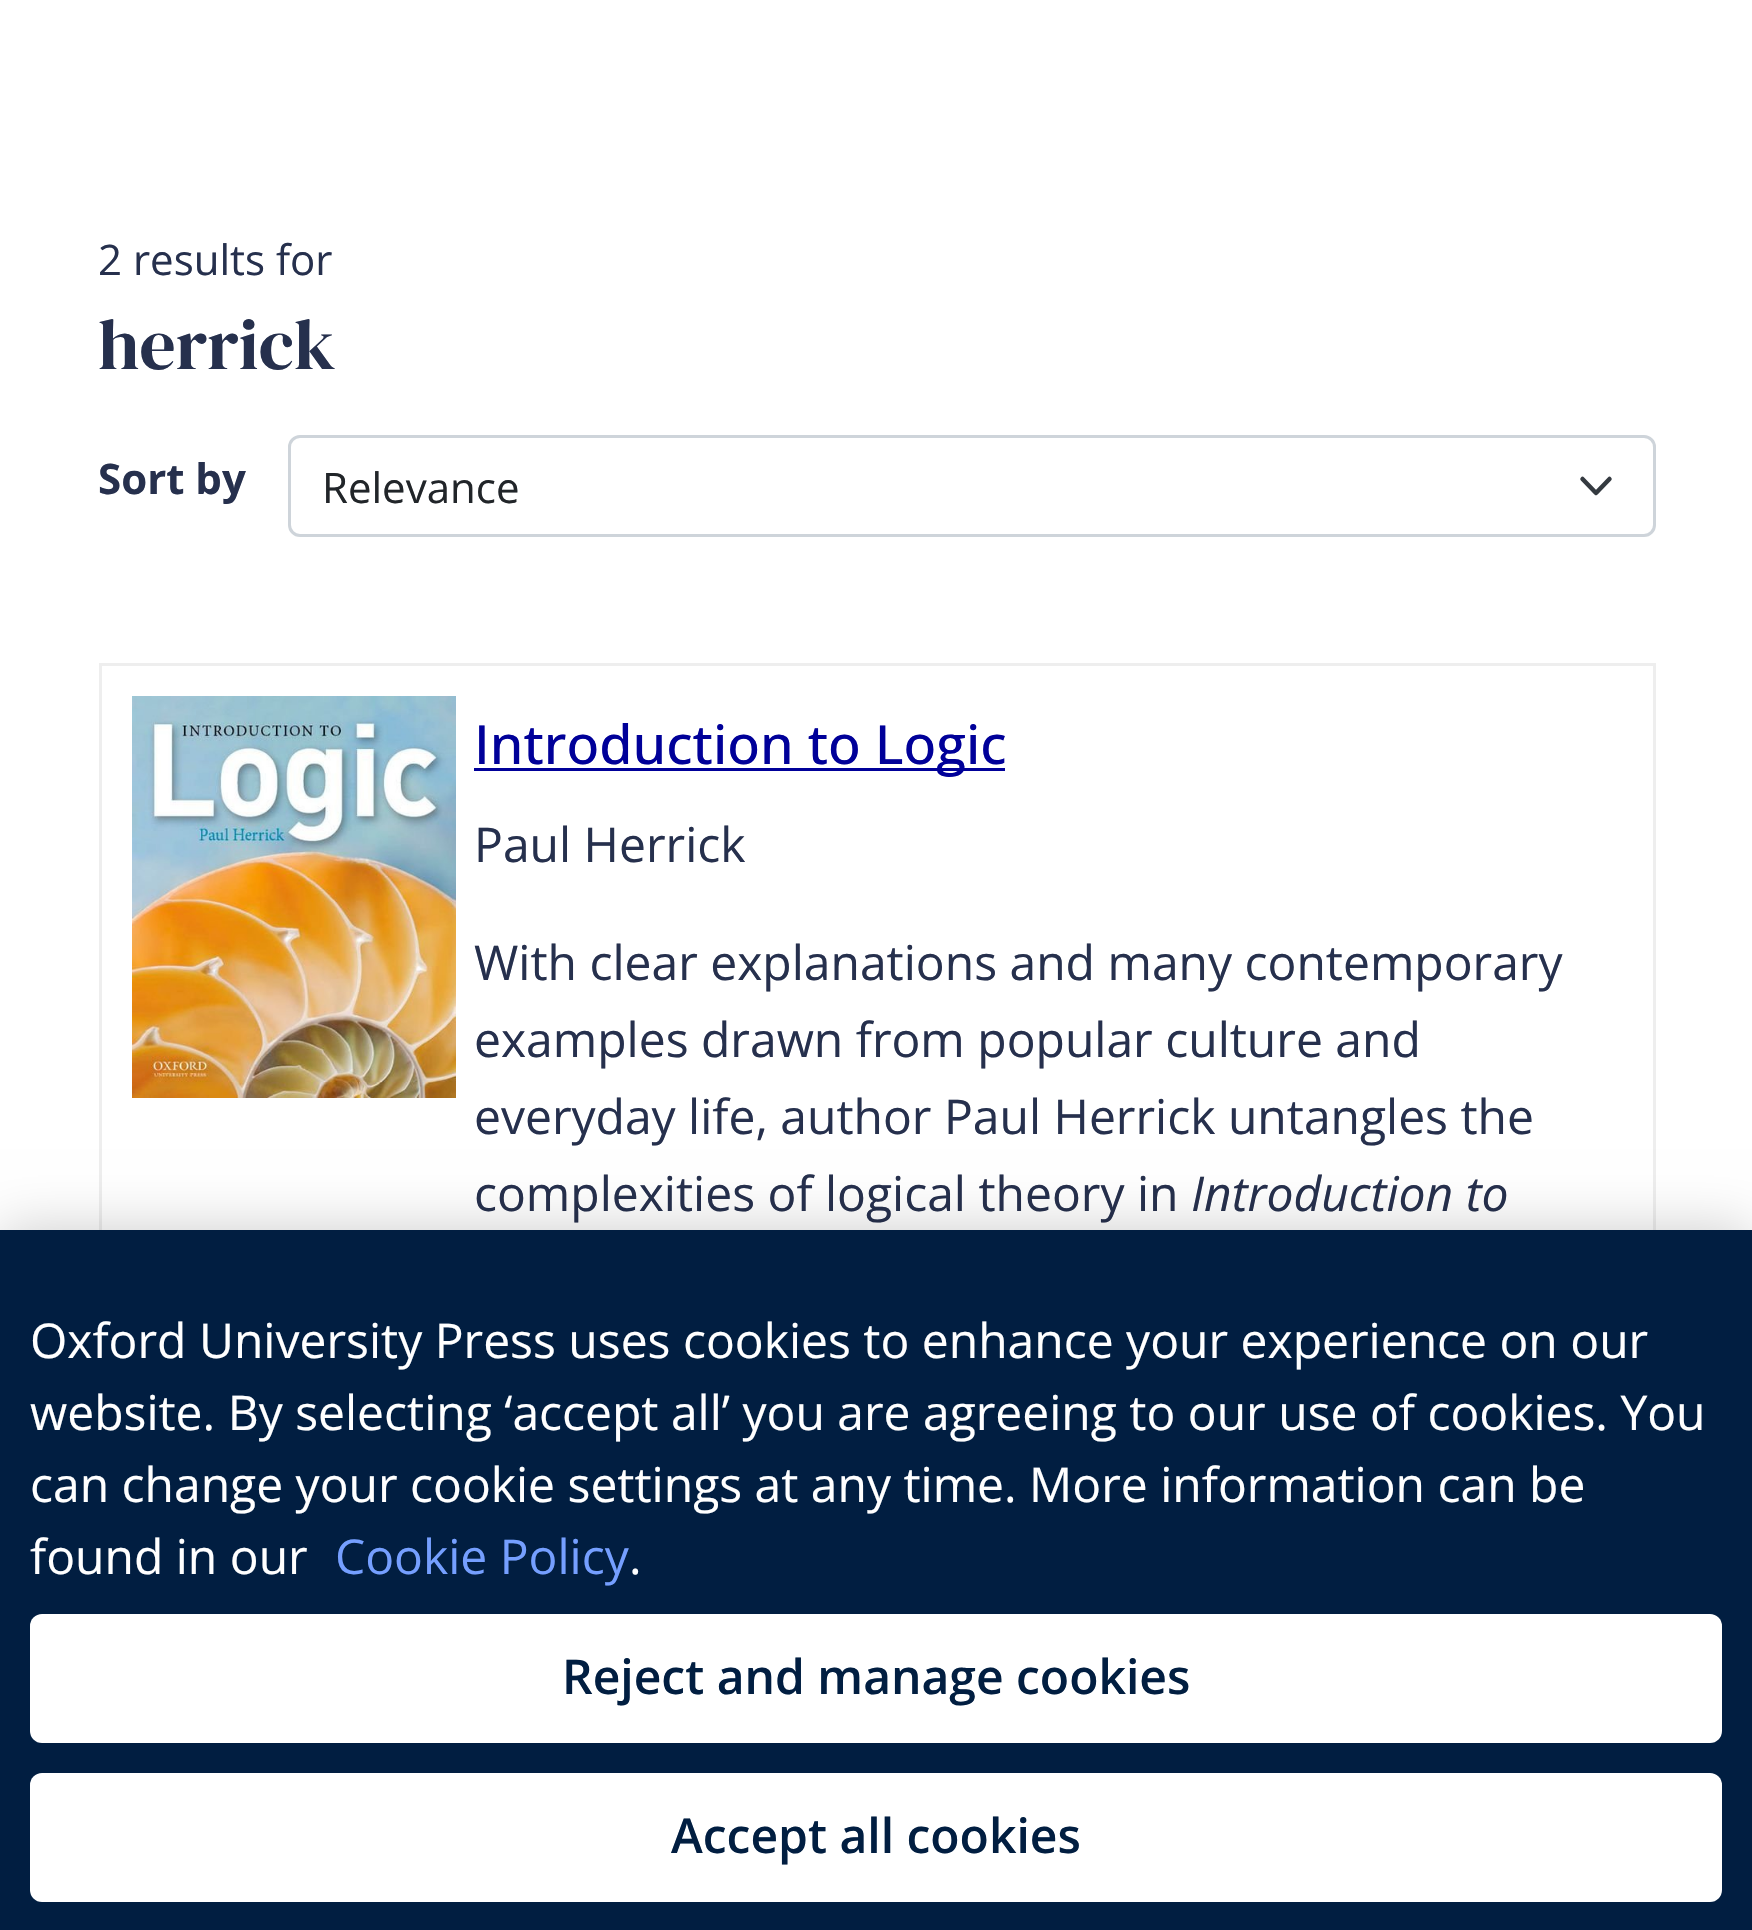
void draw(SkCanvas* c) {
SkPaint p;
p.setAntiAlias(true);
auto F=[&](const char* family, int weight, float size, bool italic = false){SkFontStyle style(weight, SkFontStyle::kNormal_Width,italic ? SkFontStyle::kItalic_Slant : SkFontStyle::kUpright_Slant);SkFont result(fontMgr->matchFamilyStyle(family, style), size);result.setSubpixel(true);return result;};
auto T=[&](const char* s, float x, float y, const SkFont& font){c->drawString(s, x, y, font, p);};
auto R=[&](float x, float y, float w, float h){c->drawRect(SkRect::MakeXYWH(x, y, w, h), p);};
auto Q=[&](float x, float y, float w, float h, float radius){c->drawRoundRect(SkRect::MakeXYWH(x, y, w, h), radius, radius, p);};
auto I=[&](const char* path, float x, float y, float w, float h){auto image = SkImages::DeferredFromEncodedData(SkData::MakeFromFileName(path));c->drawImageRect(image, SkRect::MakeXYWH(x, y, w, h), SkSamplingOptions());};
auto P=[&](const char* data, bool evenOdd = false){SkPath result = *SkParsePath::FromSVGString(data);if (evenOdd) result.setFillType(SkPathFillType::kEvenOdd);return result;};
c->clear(0xffffffff);
auto f1 = F("Open Sans",400,42);
p.setColor(0xff26304d);
T("2 results for",98,275,f1);
auto f2 = F("DM Serif Display",400,71.5);
T("herrick",98,369,f2);
auto f3 = F("Open Sans",700,42);
T("Sort by",98,494,f3);
p.setStroke(true);
p.setStrokeWidth(4.5);
p.setStrokeCap(SkPaint::kRound_Cap);
p.setStrokeJoin(SkPaint::kRound_Join);
p.setColor(0xff343a40);
c->drawPath(P("M1582.5 479l13.5 14l13.5-14"),p);
p.setStrokeWidth(3);
p.setStrokeCap(SkPaint::kButt_Cap);
p.setStrokeJoin(SkPaint::kMiter_Join);
p.setColor(0xffced4da);
c->drawRoundRect(SkRect::MakeXYWH(289.5,436.5,1365,99),10.5,10.5,p);
p.setStroke(false);
p.setColor(0xff212529);
T("Relevance",322,503,f1);
p.setStroke(true);
p.setColor(0xffeeeeee);
c->drawRect(SkRect::MakeXYWH(100.5,664.5,1554,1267),p);
I("1.png",132,696,324,402);
p.setStroke(false);
p.setColor(0xff000099);
R(474,768,531,3);
auto f4 = F("Open Sans",500,54);
T("Introduction to Logic",474,764,f4);
auto f5 = F("Open Sans",400,48);
p.setColor(0xff26304d);
T("Paul Herrick",474,862,f5);
T("With clear explanations and many contemporary",474,980,f5);
T("examples drawn from popular culture and",474,1057,f5);
T("everyday life, author Paul Herrick untangles the",474,1134,f5);
T("complexities of logical theory in",474,1211,f5);
auto f6 = F("Open Sans",400,48,true);
T("Introduction to",1191,1211,f6);
p.setColor(0x33000000);
p.setMaskFilter(SkMaskFilter::MakeBlur(kNormal_SkBlurStyle, 27));
c->drawRect(SkRect::MakeXYWH(0,1230,1752,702),p);
p.setMaskFilter(nullptr);
p.setColor(0xff011e41);
R(0,1230,1752,700);
p.setColor(0xffffffff);
T("Oxford University Press uses cookies to enhance your experience on our",30,1358,f5);
T("website. By selecting ‘accept all’ you are agreeing to our use of cookies. You",30,1430,f5);
T("can change your cookie settings at any time. More information can be",30,1502,f5);
T("found in our",30,1574,f5);
p.setColor(0xff759fff);
T("Cookie Policy",335,1574,f5);
p.setColor(0xffffffff);
T(".",629,1574,f5);
Q(30,1614,1692,129,12);
auto f7 = F("Open Sans",600,48);
p.setColor(0xff011e41);
T("Reject and manage cookies",562,1694,f7);
p.setColor(0xffffffff);
Q(30,1773,1692,129,12);
p.setColor(0xff011e41);
T("Accept all cookies",671,1853,f7);
}
